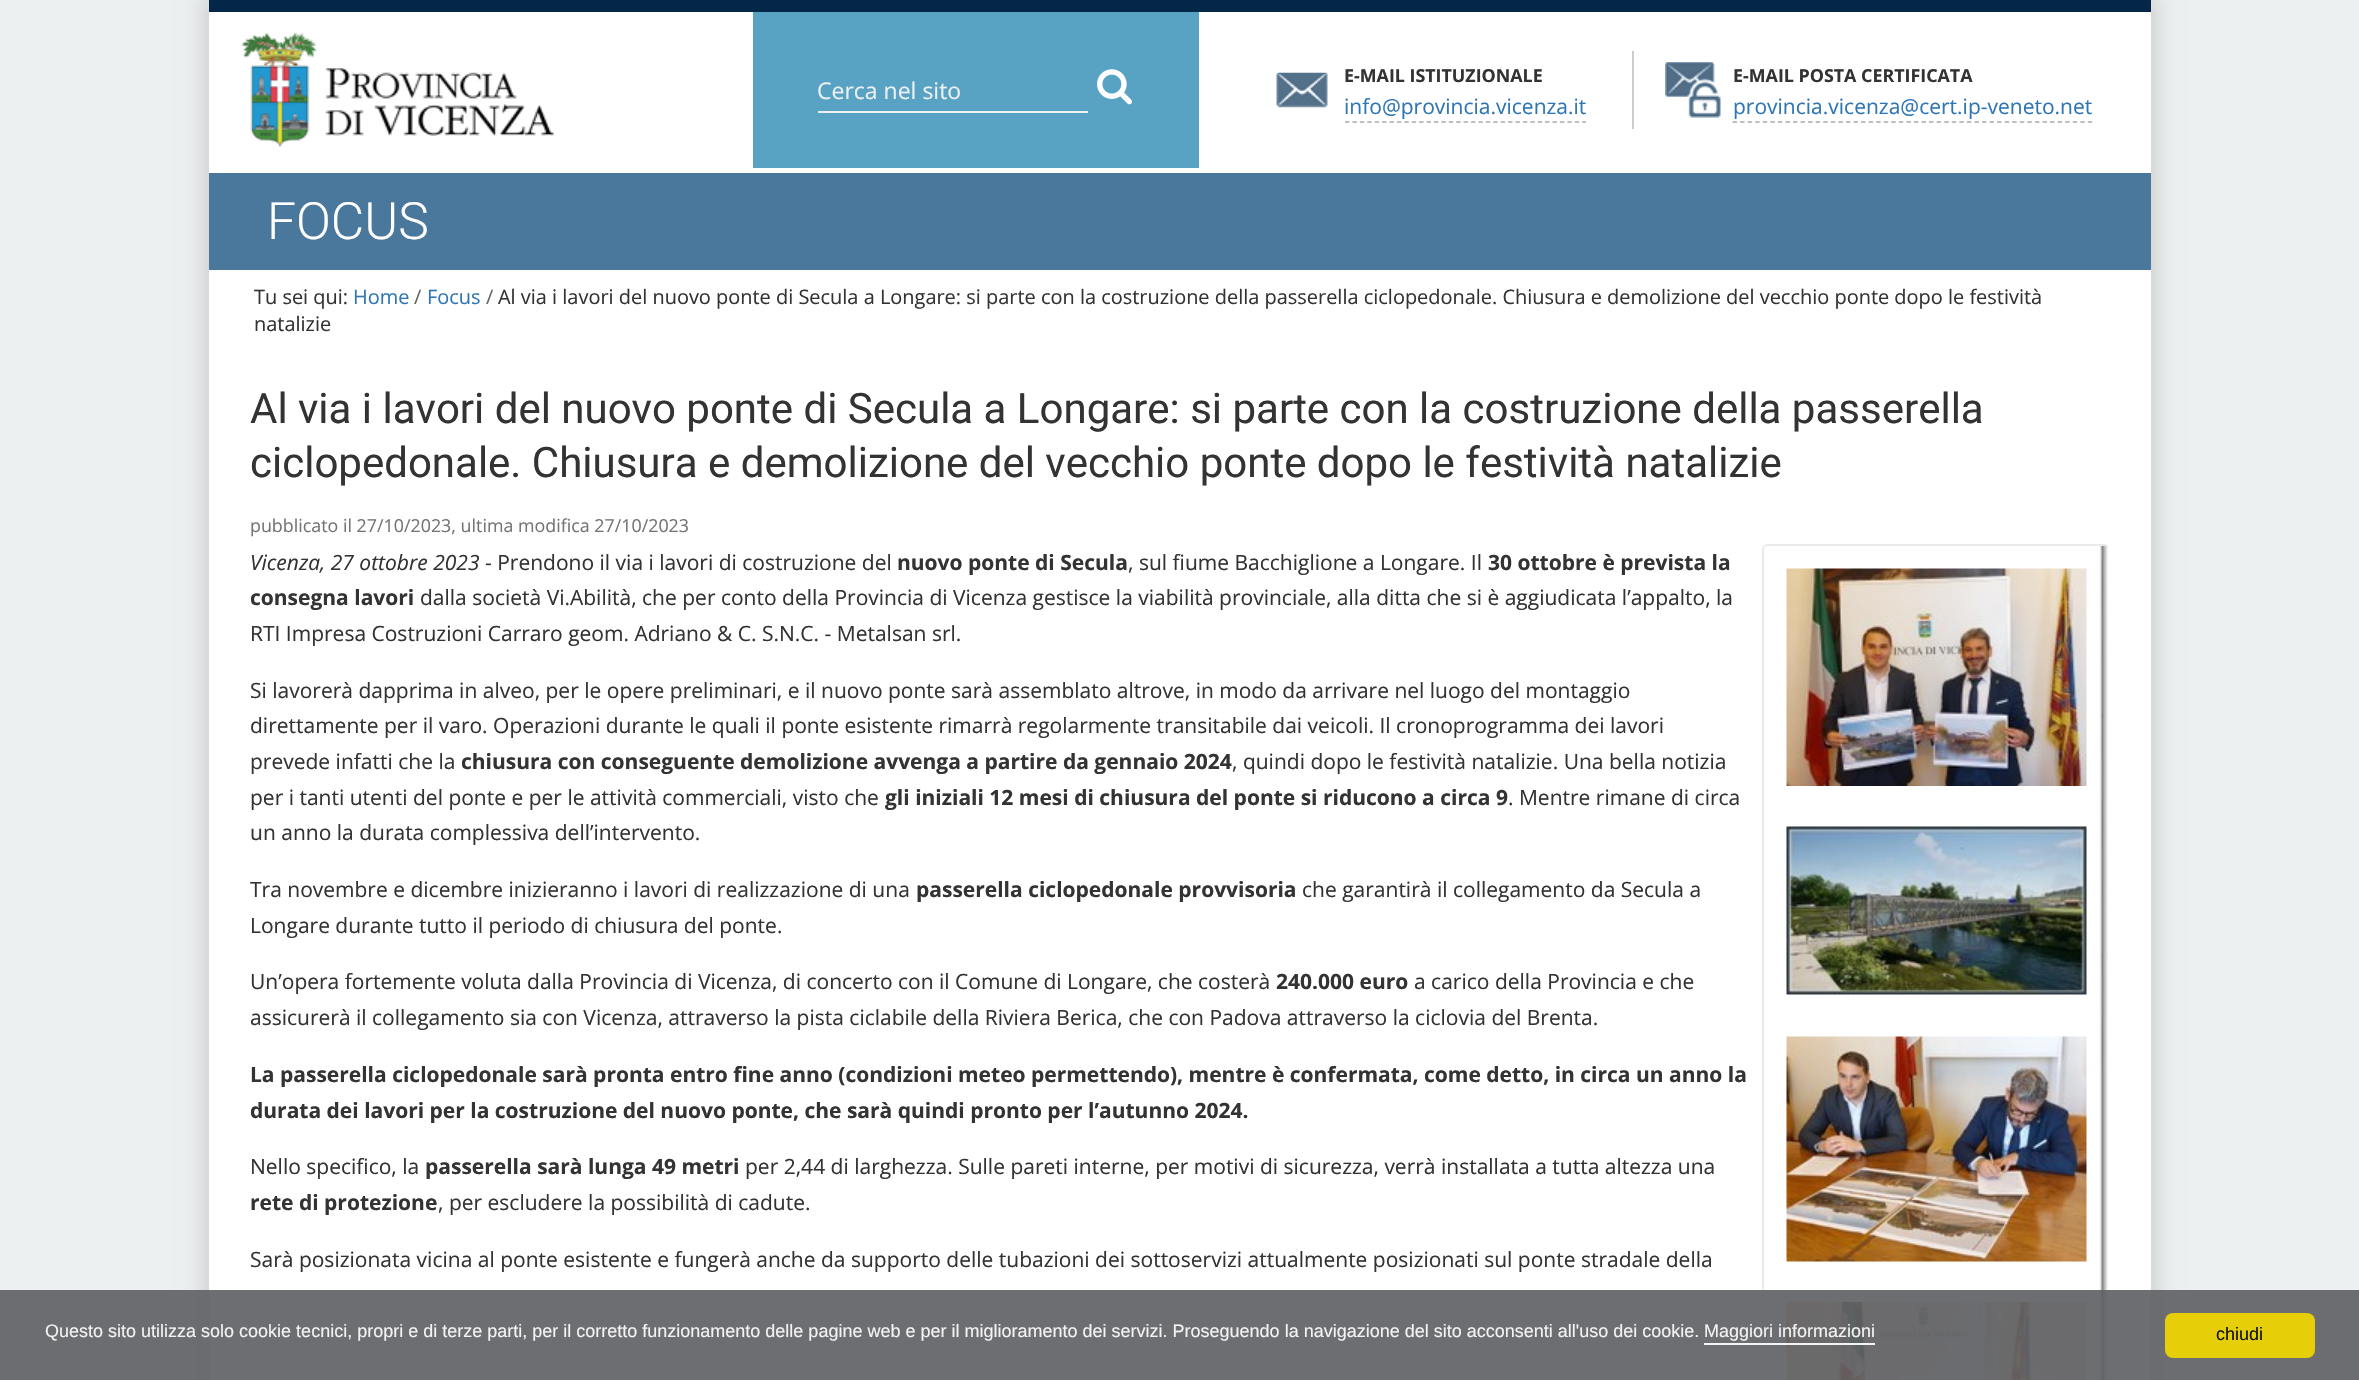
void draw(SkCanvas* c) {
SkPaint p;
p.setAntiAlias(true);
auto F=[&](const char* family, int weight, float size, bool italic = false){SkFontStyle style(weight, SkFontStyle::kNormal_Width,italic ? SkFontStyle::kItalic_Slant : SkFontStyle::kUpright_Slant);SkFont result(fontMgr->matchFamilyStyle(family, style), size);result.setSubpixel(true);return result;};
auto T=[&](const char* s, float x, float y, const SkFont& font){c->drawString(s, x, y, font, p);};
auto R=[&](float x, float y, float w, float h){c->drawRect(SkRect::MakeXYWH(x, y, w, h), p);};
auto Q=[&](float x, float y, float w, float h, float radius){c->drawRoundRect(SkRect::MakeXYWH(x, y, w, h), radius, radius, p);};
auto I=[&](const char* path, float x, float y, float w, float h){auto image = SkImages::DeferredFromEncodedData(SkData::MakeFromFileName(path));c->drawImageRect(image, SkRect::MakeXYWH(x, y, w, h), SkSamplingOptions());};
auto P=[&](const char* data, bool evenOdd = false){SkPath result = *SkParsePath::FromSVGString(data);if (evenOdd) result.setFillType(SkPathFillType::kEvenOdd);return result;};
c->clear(0xffecf0f1);
p.setColor(0xffcccccc);
p.setMaskFilter(SkMaskFilter::MakeBlur(kNormal_SkBlurStyle, 10.5));
c->drawRect(SkRect::MakeXYWH(204,-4,1952,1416),p);
p.setMaskFilter(nullptr);
p.setColor(0xffffffff);
R(209,12,1942,1368);
p.setColor(0xff042648);
R(209,0,1942,12);
I("1.png",241,32,313,115);
p.setColor(0xff58a2c4);
R(753,12,446,156);
p.setColor(0xffecf0f1);
R(818,111,270,2);
auto f1 = F("Open Sans",400,23);
T("Cerca nel sito",817,99,f1);
I("2.png",1097,69,36,36);
I("3.png",1276,72,52,36);
auto f2 = F("Open Sans",700,17.85);
p.setColor(0xff333333);
T("E-MAIL ISTITUZIONALE",1344,82,f2);
auto f3 = F("Open Sans",400,21);
p.setColor(0xff2f76b5);
T("info@provincia.vicenza.it",1344,114,f3);
p.setStroke(true);
p.setStrokeWidth(1.5);
p.setColor(0xffaaaaaa);
p.setPathEffect(SkDashPathEffect::Make({{4.5f,2.91f}}, 0));
c->drawPath(P("M1345 122h241"),p);
p.setPathEffect(nullptr);
p.setStroke(false);
p.setColor(0xffcccccc);
R(1632,51,2,78);
I("4.png",1665,62,56,56);
p.setColor(0xff333333);
T("E-MAIL POSTA CERTIFICATA",1733,82,f2);
p.setColor(0xff2f76b5);
T("provincia.vicenza@cert.ip-veneto.net",1733,114,f3);
p.setStroke(true);
p.setColor(0xffaaaaaa);
p.setPathEffect(SkDashPathEffect::Make({{4.5f,3.06f}}, 0));
c->drawPath(P("M1732.5 122h360"),p);
p.setPathEffect(nullptr);
p.setStroke(false);
p.setColor(0xff4a789c);
R(209,173,1942,97);
auto f4 = F("Roboto",300,51.5);
p.setColor(0xffffffff);
T("FOCUS",267,239,f4);
auto f5 = F("Open Sans",400,19.95);
p.setColor(0xff333333);
T("Tu sei qui:",254,304,f5);
p.setColor(0xff2f76b5);
T("Home",353,304,f5);
p.setColor(0xff666666);
T("/",414,304,f5);
p.setColor(0xff2f76b5);
T("Focus",427,304,f5);
p.setColor(0xff666666);
T("/",486,304,f5);
p.setColor(0xff333333);
T("Al via i lavori del nuovo ponte di Secula a Longare: si parte con la costruzione della passerella ciclopedonale. Chiusura e demolizione del vecchio ponte dopo le festività",498,304,f5);
T("natalizie",254,331,f5);
auto f6 = F("Roboto",400,42);
T("Al via i lavori del nuovo ponte di Secula a Longare: si parte con la costruzione della passerella",250,423,f6);
T("ciclopedonale. Chiusura e demolizione del vecchio ponte dopo le festività natalizie",250,477,f6);
auto f7 = F("Open Sans",400,17.85);
p.setColor(0xff747474);
T("pubblicato il 27/10/2023, ultima modifica 27/10/2023",250,532,f7);
auto f8 = F("Open Sans",400,21,true);
p.setColor(0xff333333);
T("Vicenza, 27 ottobre 2023",250,570,f8);
T("- Prendono il via i lavori di costruzione del",485,570,f3);
auto f9 = F("Open Sans",700,21);
T("nuovo ponte di Secula",897,570,f9);
T(", sul fiume Bacchiglione a Longare. Il",1128,570,f3);
T("30 ottobre è prevista la",1488,570,f9);
T("consegna lavori",250,605,f9);
T("dalla società Vi.Abilità, che per conto della Provincia di Vicenza gestisce la viabilità provinciale, alla ditta che si è aggiudicata l’appalto, la",420,605,f3);
T("RTI Impresa Costruzioni Carraro geom. Adriano & C. S.N.C. - Metalsan srl.",250,641,f3);
T("Si lavorerà dapprima in alveo, per le opere preliminari, e il nuovo ponte sarà assemblato altrove, in modo da arrivare nel luogo del montaggio",250,698,f3);
T("direttamente per il varo. Operazioni durante le quali il ponte esistente rimarrà regolarmente transitabile dai veicoli. Il cronoprogramma dei lavori",250,733,f3);
T("prevede infatti che la",250,769,f3);
T("chiusura con conseguente demolizione avvenga a partire da gennaio 2024",461,769,f9);
T(", quindi dopo le festività natalizie. Una bella notizia",1232,769,f3);
T("per i tanti utenti del ponte e per le attività commerciali, visto che",250,805,f3);
T("gli iniziali 12 mesi di chiusura del ponte si riducono a circa 9",885,805,f9);
T(". Mentre rimane di circa",1508,805,f3);
T("un anno la durata complessiva dell’intervento.",250,840,f3);
T("Tra novembre e dicembre inizieranno i lavori di realizzazione di una",250,897,f3);
T("passerella ciclopedonale provvisoria",916,897,f9);
T("che garantirà il collegamento da Secula a",1302,897,f3);
T("Longare durante tutto il periodo di chiusura del ponte.",250,933,f3);
T("Un’opera fortemente voluta dalla Provincia di Vicenza, di concerto con il Comune di Longare, che costerà",250,989,f3);
T("240.000 euro",1276,989,f9);
T("a carico della Provincia e che",1414,989,f3);
T("assicurerà il collegamento sia con Vicenza, attraverso la pista ciclabile della Riviera Berica, che con Padova attraverso la ciclovia del Brenta.",250,1025,f3);
T("La passerella ciclopedonale sarà pronta entro fine anno (condizioni meteo permettendo), mentre è confermata, come detto, in circa un anno la",250,1082,f9);
T("durata dei lavori per la costruzione del nuovo ponte, che sarà quindi pronto per l’autunno 2024.",250,1118,f9);
T("Nello specifico, la",250,1174,f3);
T("passerella sarà lunga 49 metri",425,1174,f9);
T("per 2,44 di larghezza. Sulle pareti interne, per motivi di sicurezza, verrà installata a tutta altezza una",745,1174,f3);
T("rete di protezione",250,1210,f9);
T(", per escludere la possibilità di cadute.",438,1210,f3);
T("Sarà posizionata vicina al ponte esistente e fungerà anche da supporto delle tubazioni dei sottoservizi attualmente posizionati sul ponte stradale della",250,1267,f3);
I("5.png",2099,544,9,836);
p.setColor(0xffeaeaea);
c->drawPath(P("M1767 544h337c3 0 5 3 5 5v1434c0 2-2 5-5 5h-337c-2 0-5-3-5-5v-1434c0-2 3-5 5-5zm0 2h337c3 0 5 1 5 3v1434c0 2-2 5-5 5h-337c-2 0-3-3-3-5v-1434c0-2 1-3 3-3z",true),p);
I("6.png",1786,568,301,218);
I("7.png",1786,826,301,169);
I("8.png",1786,1036,301,226);
I("9.png",1786,1302,301,78);
p.setColor(0xeb616265);
R(0,1290,2359,90);
auto f10 = F("Liberation Sans",400,18);
p.setColor(0xfff3f3f4);
T("Questo sito utilizza solo cookie tecnici, propri e di terze parti, per il corretto funzionamento delle pagine web e per il miglioramento dei servizi. Proseguendo la navigazione del sito acconsenti all'uso dei cookie.",45,1337,f10);
T("Maggiori informazioni",1704,1337,f10);
p.setColor(0xebffffff);
R(1704,1343,171,2);
p.setColor(0xffe6ce09);
Q(2165,1313,150,45,8);
p.setColor(0xff131313);
T("chiudi",2216,1340,f10);
}
